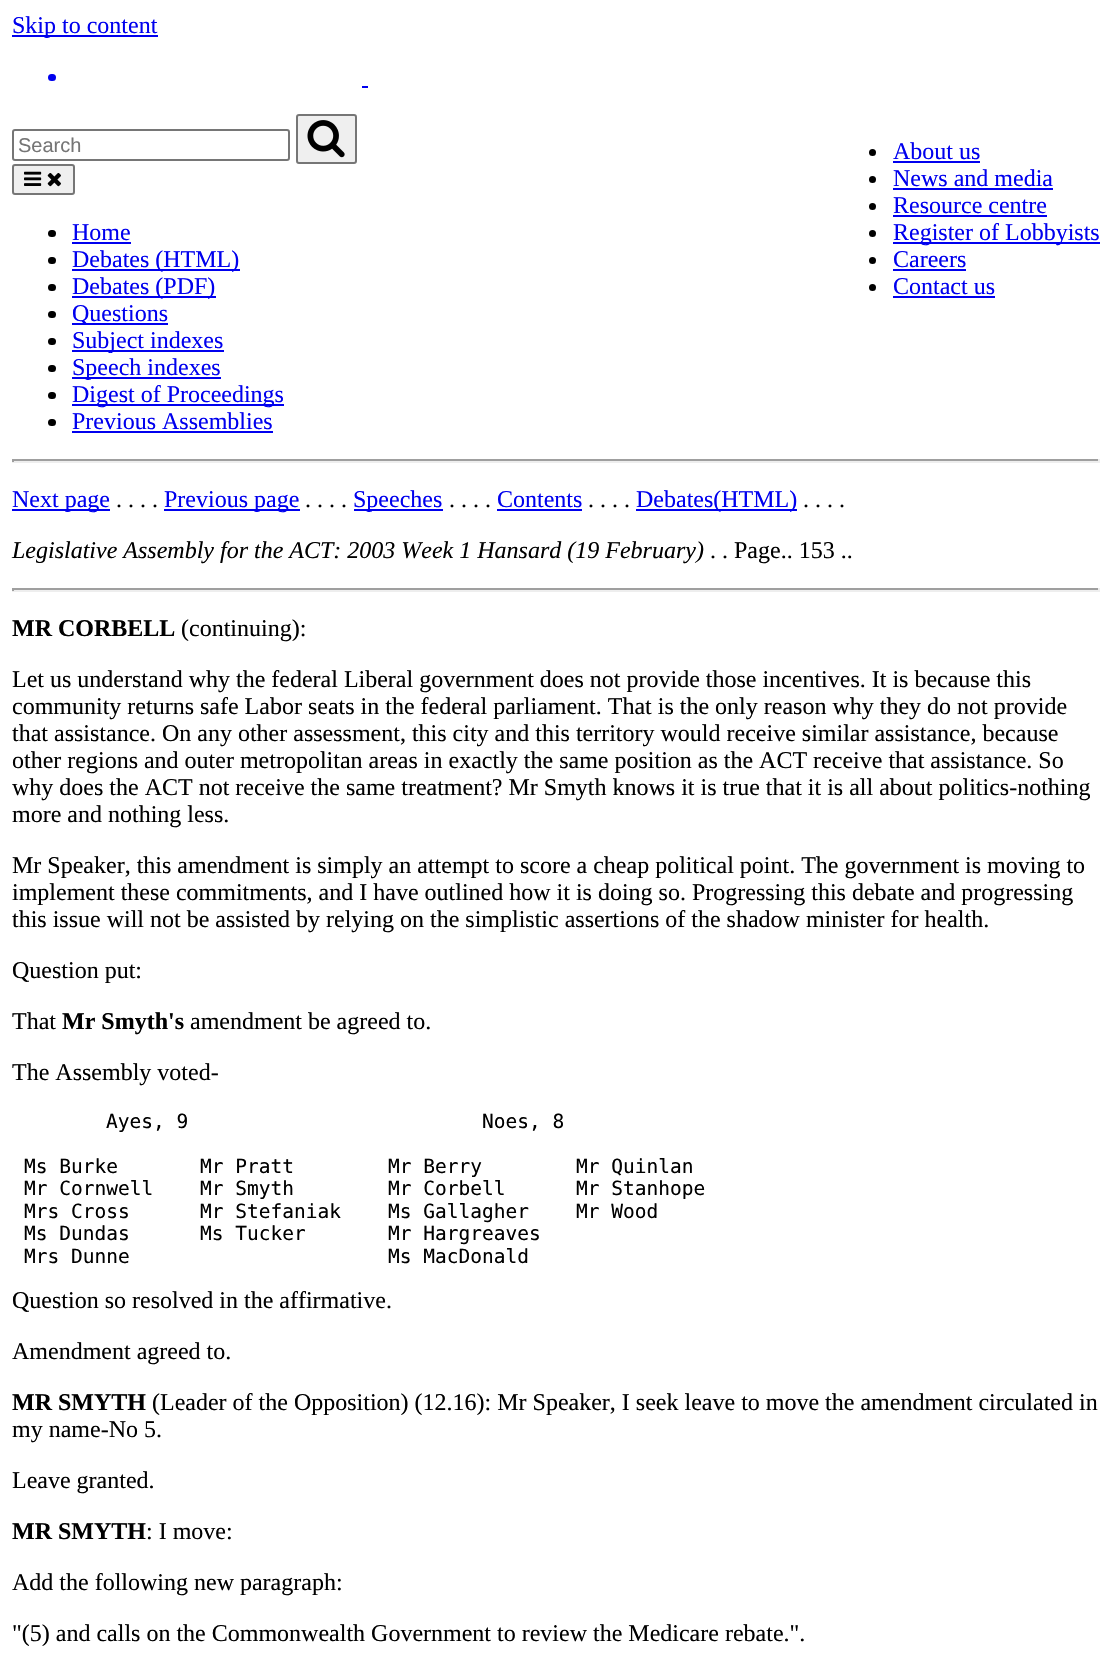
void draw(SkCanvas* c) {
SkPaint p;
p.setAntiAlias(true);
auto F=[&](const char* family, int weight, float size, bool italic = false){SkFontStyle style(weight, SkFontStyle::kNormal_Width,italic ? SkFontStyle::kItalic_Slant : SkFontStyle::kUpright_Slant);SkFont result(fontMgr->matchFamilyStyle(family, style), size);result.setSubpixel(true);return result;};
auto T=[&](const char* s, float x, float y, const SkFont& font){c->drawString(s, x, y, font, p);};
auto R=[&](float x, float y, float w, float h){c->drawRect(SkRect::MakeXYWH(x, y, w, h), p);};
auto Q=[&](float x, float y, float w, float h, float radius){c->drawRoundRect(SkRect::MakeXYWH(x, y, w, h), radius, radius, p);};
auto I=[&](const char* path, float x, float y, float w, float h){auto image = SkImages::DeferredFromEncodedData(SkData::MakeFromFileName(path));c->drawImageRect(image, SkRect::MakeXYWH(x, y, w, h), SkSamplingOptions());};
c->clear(0xffffffff);
p.setColor(0xff0000ee);
R(12,35,146,2);
auto f1 = F("Liberation Serif",400,24);
T("Skip to content",12,33,f1);
Q(48,74,8,7,3.5);
R(362,86,6,2);
p.setStroke(true);
p.setStrokeWidth(2);
p.setColor(0xff767676);
c->drawRoundRect(SkRect::MakeXYWH(13,130,276,30),2,2,p);
auto f2 = F("Liberation Sans",400,20);
p.setStroke(false);
p.setColor(0xff757575);
T("Search",18,152,f2);
p.setColor(0xffefefef);
c->drawRoundRect(SkRect::MakeXYWH(297,115,59,48),2,2,p);
p.setStroke(true);
p.setColor(0xff767676);
c->drawRoundRect(SkRect::MakeXYWH(297,115,59,48),2,2,p);
I("1.png",307,120,38,38);
p.setStroke(false);
p.setColor(0xff000000);
c->drawCircle(872.5,152.5,3.5,p);
p.setColor(0xff0000ee);
T("About us",893,159,f1);
R(893,161,87,2);
p.setColor(0xff000000);
c->drawCircle(872.5,179.5,3.5,p);
p.setColor(0xff0000ee);
T("News and media",893,186,f1);
R(893,188,160,2);
p.setColor(0xff000000);
c->drawCircle(872.5,206.5,3.5,p);
p.setColor(0xff0000ee);
T("Resource centre",893,213,f1);
R(893,215,154,2);
p.setColor(0xff000000);
c->drawCircle(872.5,233.5,3.5,p);
p.setColor(0xff0000ee);
R(893,242,207,2);
T("Register of Lobbyists",893,240,f1);
p.setColor(0xff000000);
c->drawCircle(872.5,260.5,3.5,p);
p.setColor(0xff0000ee);
T("Careers",893,267,f1);
R(893,269,73,2);
p.setColor(0xff000000);
c->drawCircle(872.5,287.5,3.5,p);
p.setColor(0xff0000ee);
T("Contact us",893,294,f1);
R(893,296,102,2);
p.setColor(0xffefefef);
c->drawRoundRect(SkRect::MakeXYWH(13,165,61,29),2,2,p);
p.setStroke(true);
p.setColor(0xff767676);
c->drawRoundRect(SkRect::MakeXYWH(13,165,61,29),2,2,p);
I("2.png",24,171,18,15);
I("3.png",47,173,14,14);
p.setStroke(false);
p.setColor(0xff000000);
Q(48,230,8,7,3.5);
p.setColor(0xff0000ee);
T("Home",72,240,f1);
R(72,242,59,2);
p.setColor(0xff000000);
Q(48,257,8,7,3.5);
p.setColor(0xff0000ee);
R(72,269,168,2);
T("Debates (HTML)",72,267,f1);
p.setColor(0xff000000);
Q(48,284,8,7,3.5);
p.setColor(0xff0000ee);
R(72,296,144,2);
T("Debates (PDF)",72,294,f1);
p.setColor(0xff000000);
Q(48,311,8,7,3.5);
p.setColor(0xff0000ee);
R(72,323,96,2);
T("Questions",72,321,f1);
p.setColor(0xff000000);
Q(48,338,8,7,3.5);
p.setColor(0xff0000ee);
R(72,350,152,2);
T("Subject indexes",72,348,f1);
p.setColor(0xff000000);
Q(48,365,8,7,3.5);
p.setColor(0xff0000ee);
R(72,377,149,2);
T("Speech indexes",72,375,f1);
p.setColor(0xff000000);
Q(48,392,8,7,3.5);
p.setColor(0xff0000ee);
R(72,404,212,2);
T("Digest of Proceedings",72,402,f1);
p.setColor(0xff000000);
Q(48,419,8,7,3.5);
p.setColor(0xff0000ee);
T("Previous Assemblies",72,429,f1);
R(72,431,201,2);
p.setColor(0xff9f9f9f);
R(12,459,1088,2);
p.setColor(0xffeeeeee);
R(1098,459,2,3);
R(12,461,1088,2);
p.setColor(0xff9f9f9f);
R(12,459,2,3);
p.setColor(0xff0000ee);
R(12,509,98,2);
T("Next page",12,507,f1);
p.setColor(0xff000000);
T(". . . .",116,507,f1);
p.setColor(0xff0000ee);
R(164,509,136,2);
T("Previous page",164,507,f1);
p.setColor(0xff000000);
T(". . . .",305,507,f1);
p.setColor(0xff0000ee);
R(354,509,89,2);
T("Speeches",353,507,f1);
p.setColor(0xff000000);
T(". . . .",449,507,f1);
p.setColor(0xff0000ee);
T("Contents",497,507,f1);
R(497,509,85,2);
p.setColor(0xff000000);
T(". . . .",588,507,f1);
p.setColor(0xff0000ee);
R(636,509,161,2);
T("Debates(HTML)",636,507,f1);
p.setColor(0xff000000);
T(". . . .",803,507,f1);
auto f3 = F("Liberation Serif",400,24,true);
T("Legislative Assembly for the ACT: 2003 Week 1 Hansard (19 February)",12,558,f3);
T(". . Page.. 153 ..",710,558,f1);
p.setColor(0xff9f9f9f);
R(12,588,1088,2);
p.setColor(0xffeeeeee);
R(1098,588,2,3);
R(12,590,1088,2);
p.setColor(0xff9f9f9f);
R(12,588,2,3);
auto f4 = F("Liberation Serif",700,24);
p.setColor(0xff000000);
T("MR CORBELL",12,636,f4);
T("(continuing):",181,636,f1);
T("Let us understand why the federal Liberal government does not provide those incentives. It is because this",12,687,f1);
T("community returns safe Labor seats in the federal parliament. That is the only reason why they do not provide",12,714,f1);
T("that assistance. On any other assessment, this city and this territory would receive similar assistance, because",12,741,f1);
T("other regions and outer metropolitan areas in exactly the same position as the ACT receive that assistance. So",12,768,f1);
T("why does the ACT not receive the same treatment? Mr Smyth knows it is true that it is all about politics-nothing",12,795,f1);
T("more and nothing less.",12,822,f1);
T("Mr Speaker, this amendment is simply an attempt to score a cheap political point. The government is moving to",12,873,f1);
T("implement these commitments, and I have outlined how it is doing so. Progressing this debate and progressing",12,900,f1);
T("this issue will not be assisted by relying on the simplistic assertions of the shadow minister for health.",12,927,f1);
T("Question put:",12,978,f1);
T("That",12,1029,f1);
T("Mr Smyth's",62,1029,f4);
T("amendment be agreed to.",190,1029,f1);
T("The Assembly voted-",12,1080,f1);
auto f5 = F("DejaVu Sans Mono",400,19.5);
T("Ayes, 9",106,1128,f5);
T("Noes, 8",482,1128,f5);
T("Ms Burke",24,1173,f5);
T("Mr Pratt",200,1173,f5);
T("Mr Berry",388,1173,f5);
T("Mr Quinlan",576,1173,f5);
T("Mr Cornwell",24,1195,f5);
T("Mr Smyth",200,1195,f5);
T("Mr Corbell",388,1195,f5);
T("Mr Stanhope",576,1195,f5);
T("Mrs Cross",24,1218,f5);
T("Mr Stefaniak",200,1218,f5);
T("Ms Gallagher",388,1218,f5);
T("Mr Wood",576,1218,f5);
T("Ms Dundas",24,1240,f5);
T("Ms Tucker",200,1240,f5);
T("Mr Hargreaves",388,1240,f5);
T("Mrs Dunne",24,1263,f5);
T("Ms MacDonald",388,1263,f5);
T("Question so resolved in the affirmative.",12,1308,f1);
T("Amendment agreed to.",12,1359,f1);
T("MR SMYTH",12,1410,f4);
T("(Leader of the Opposition) (12.16): Mr Speaker, I seek leave to move the amendment circulated in",152,1410,f1);
T("my name-No 5.",12,1437,f1);
T("Leave granted.",12,1488,f1);
T("MR SMYTH",12,1539,f4);
T(": I move:",146,1539,f1);
T("Add the following new paragraph:",12,1590,f1);
T("\"(5) and calls on the Commonwealth Government to review the Medicare rebate.\".",12,1641,f1);
}
